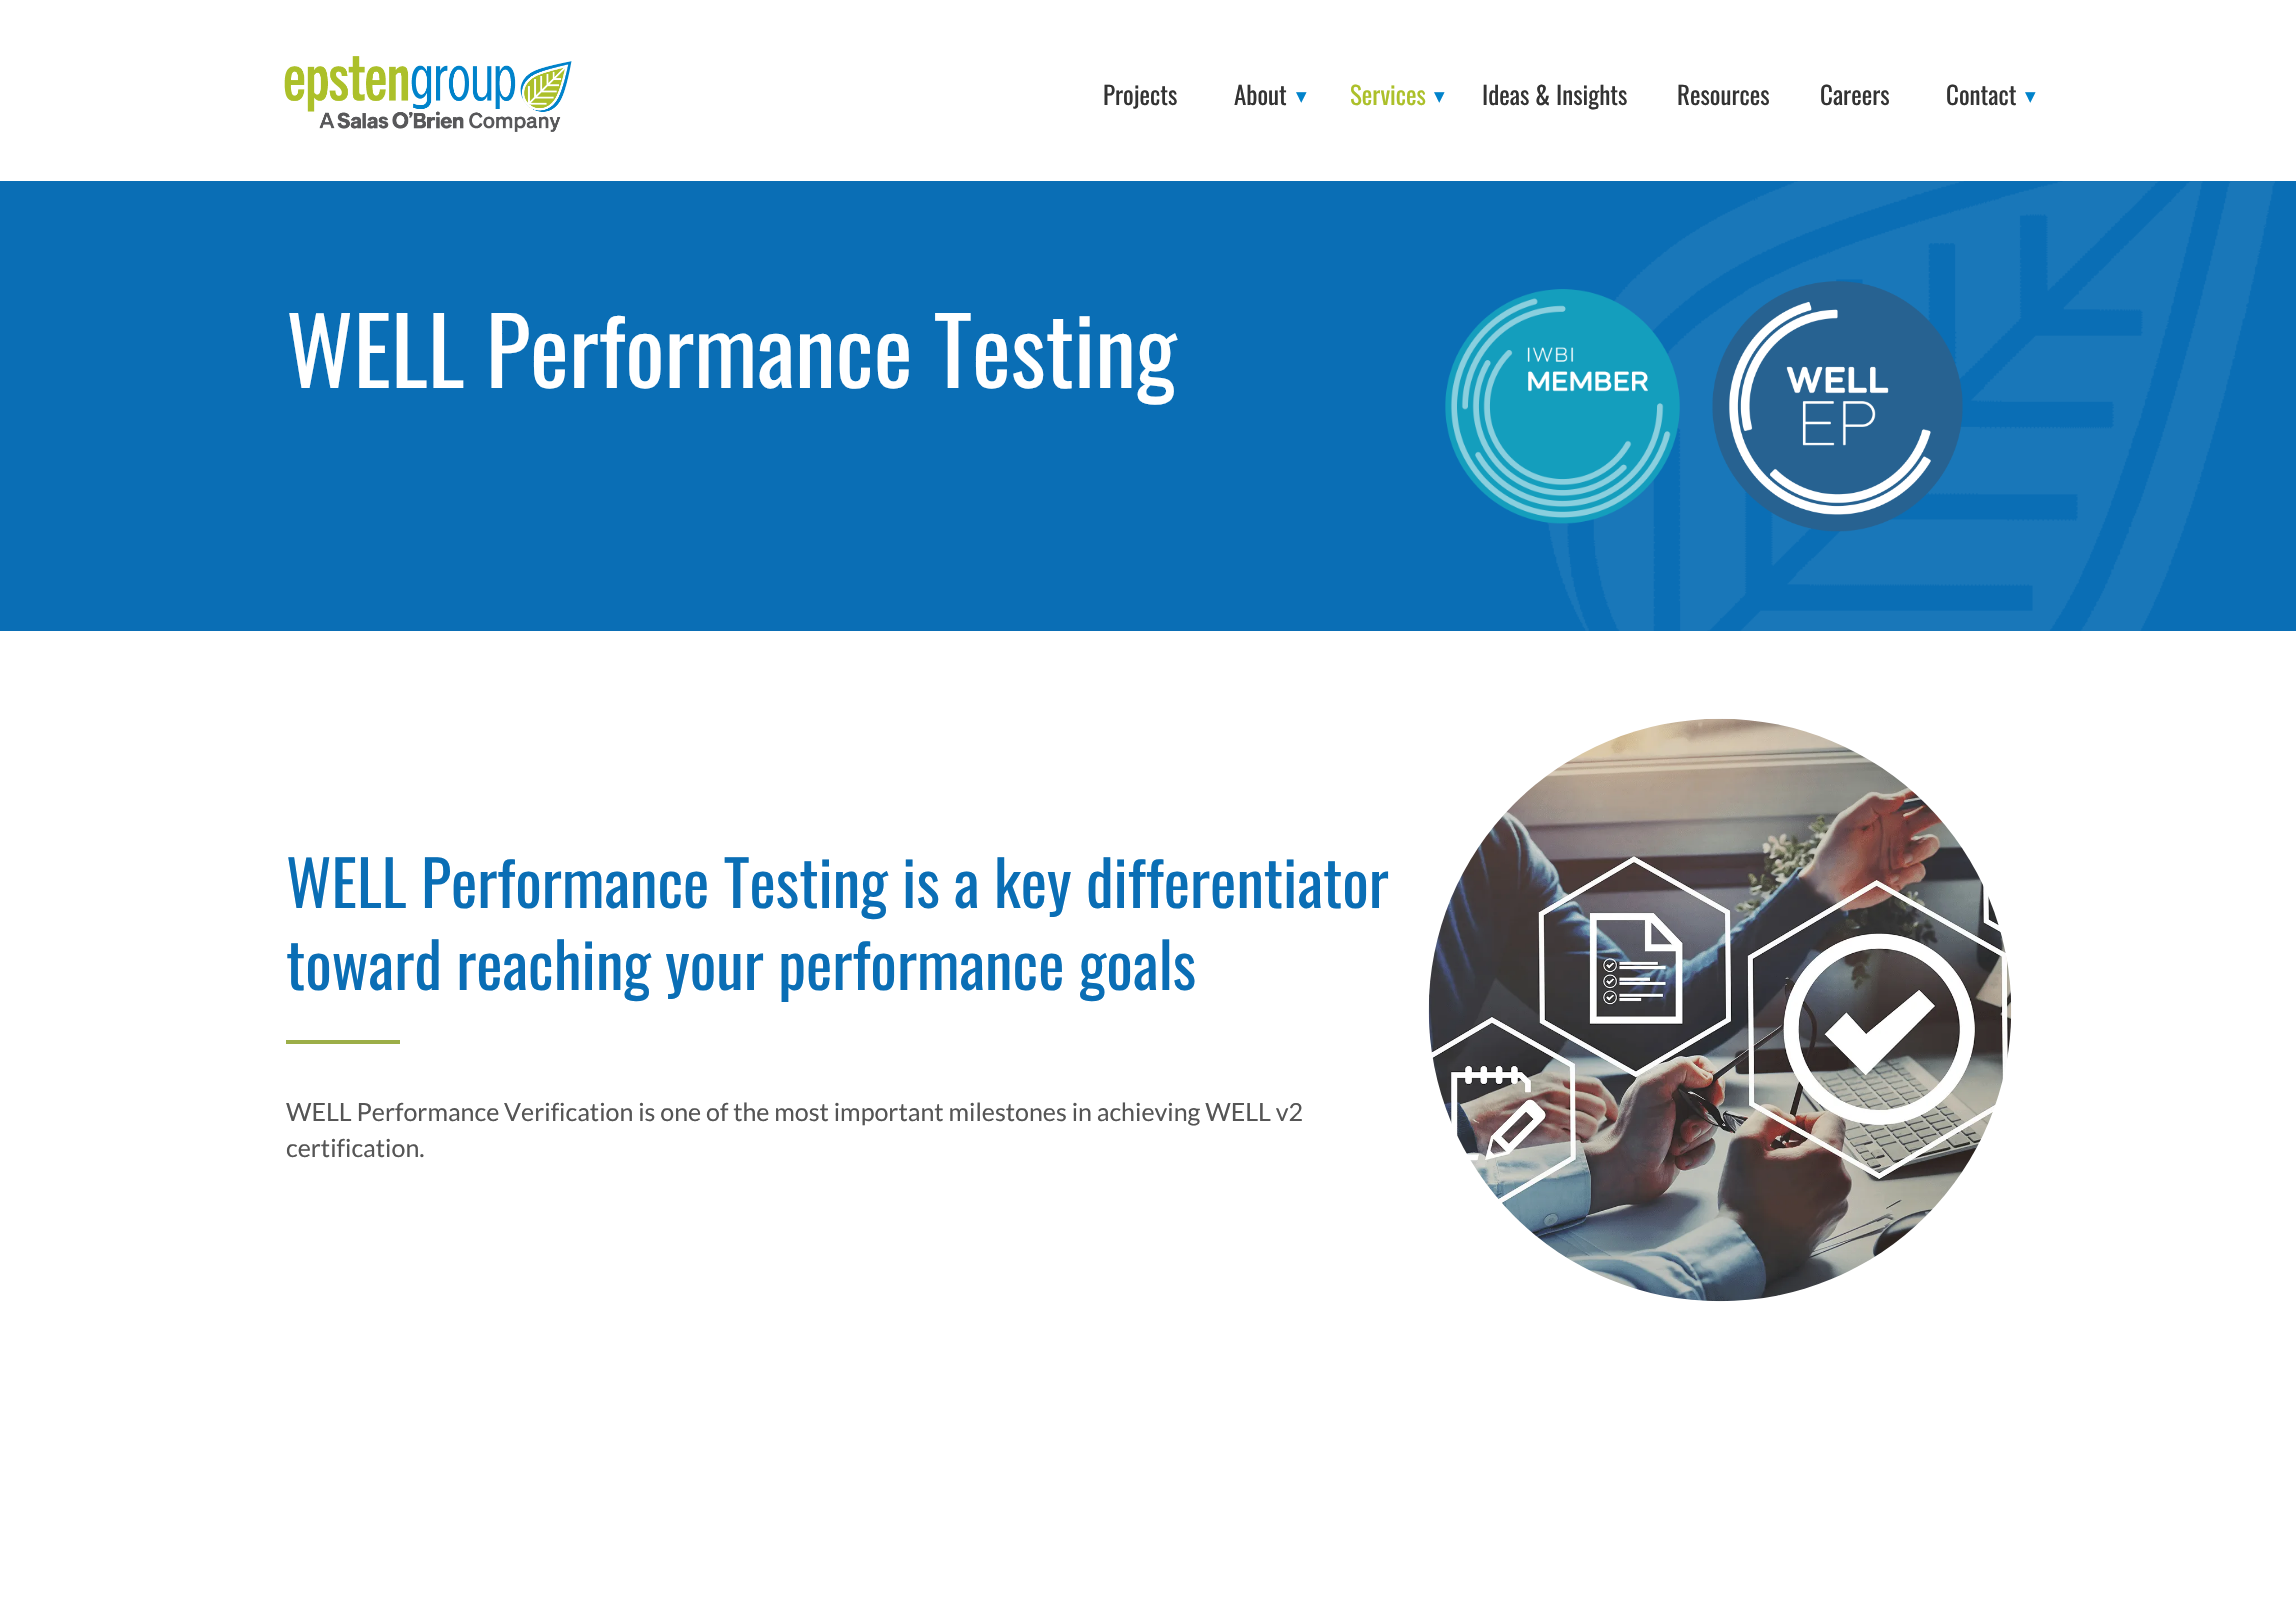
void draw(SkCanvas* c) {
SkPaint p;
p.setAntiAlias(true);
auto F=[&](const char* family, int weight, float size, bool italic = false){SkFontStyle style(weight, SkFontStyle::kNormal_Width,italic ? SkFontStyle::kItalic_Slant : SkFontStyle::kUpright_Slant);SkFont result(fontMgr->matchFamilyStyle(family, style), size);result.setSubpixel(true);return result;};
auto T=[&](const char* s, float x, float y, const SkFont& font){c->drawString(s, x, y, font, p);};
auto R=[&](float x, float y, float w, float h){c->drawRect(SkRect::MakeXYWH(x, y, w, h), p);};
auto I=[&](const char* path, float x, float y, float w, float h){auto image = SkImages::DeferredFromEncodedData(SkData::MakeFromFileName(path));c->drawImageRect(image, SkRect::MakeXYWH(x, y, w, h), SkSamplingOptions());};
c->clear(0xffffffff);
I("1.png",284,56,288,76);
auto f1 = F("Oswald",400,25);
p.setColor(0xff333333);
T("Projects",1103,105,f1);
T("About",1234,105,f1);
auto f2 = F("DejaVu Sans",400,21);
p.setColor(0xff0183cb);
T("▾",1296,103,f2);
p.setColor(0xffacc02a);
T("Services",1350,105,f1);
p.setColor(0xff0183cb);
T("▾",1434,103,f2);
p.setColor(0xff333333);
T("Ideas & Insights",1482,105,f1);
T("Resources",1677,105,f1);
T("Careers",1820,105,f1);
T("Contact",1946,105,f1);
p.setColor(0xff0183cb);
T("▾",2025,103,f2);
p.setColor(0xff0a6eb5);
R(0,181,2296,450);
I("2.png",1547,181,728,450);
auto f3 = F("Oswald",400,92.5);
p.setColor(0xffffffff);
T("WELL Performance Testing",286,388,f3);
I("3.png",1445,289,235,235);
I("4.png",1712,281,251,251);
auto f4 = F("Oswald",400,62.5);
p.setColor(0xff0a6eb5);
T("WELL Performance Testing is a key differentiator",286,908,f4);
T("toward reaching your performance goals",286,990,f4);
p.setColor(0xff9cae48);
R(286,1040,114,4);
auto f5 = F("Lato",400,25);
p.setColor(0xff555555);
T("WELL Performance Verification is one of the most important milestones in achieving WELL v2",286,1121,f5);
T("certification.",286,1157,f5);
I("5.png",1428,718,584,584);
}
